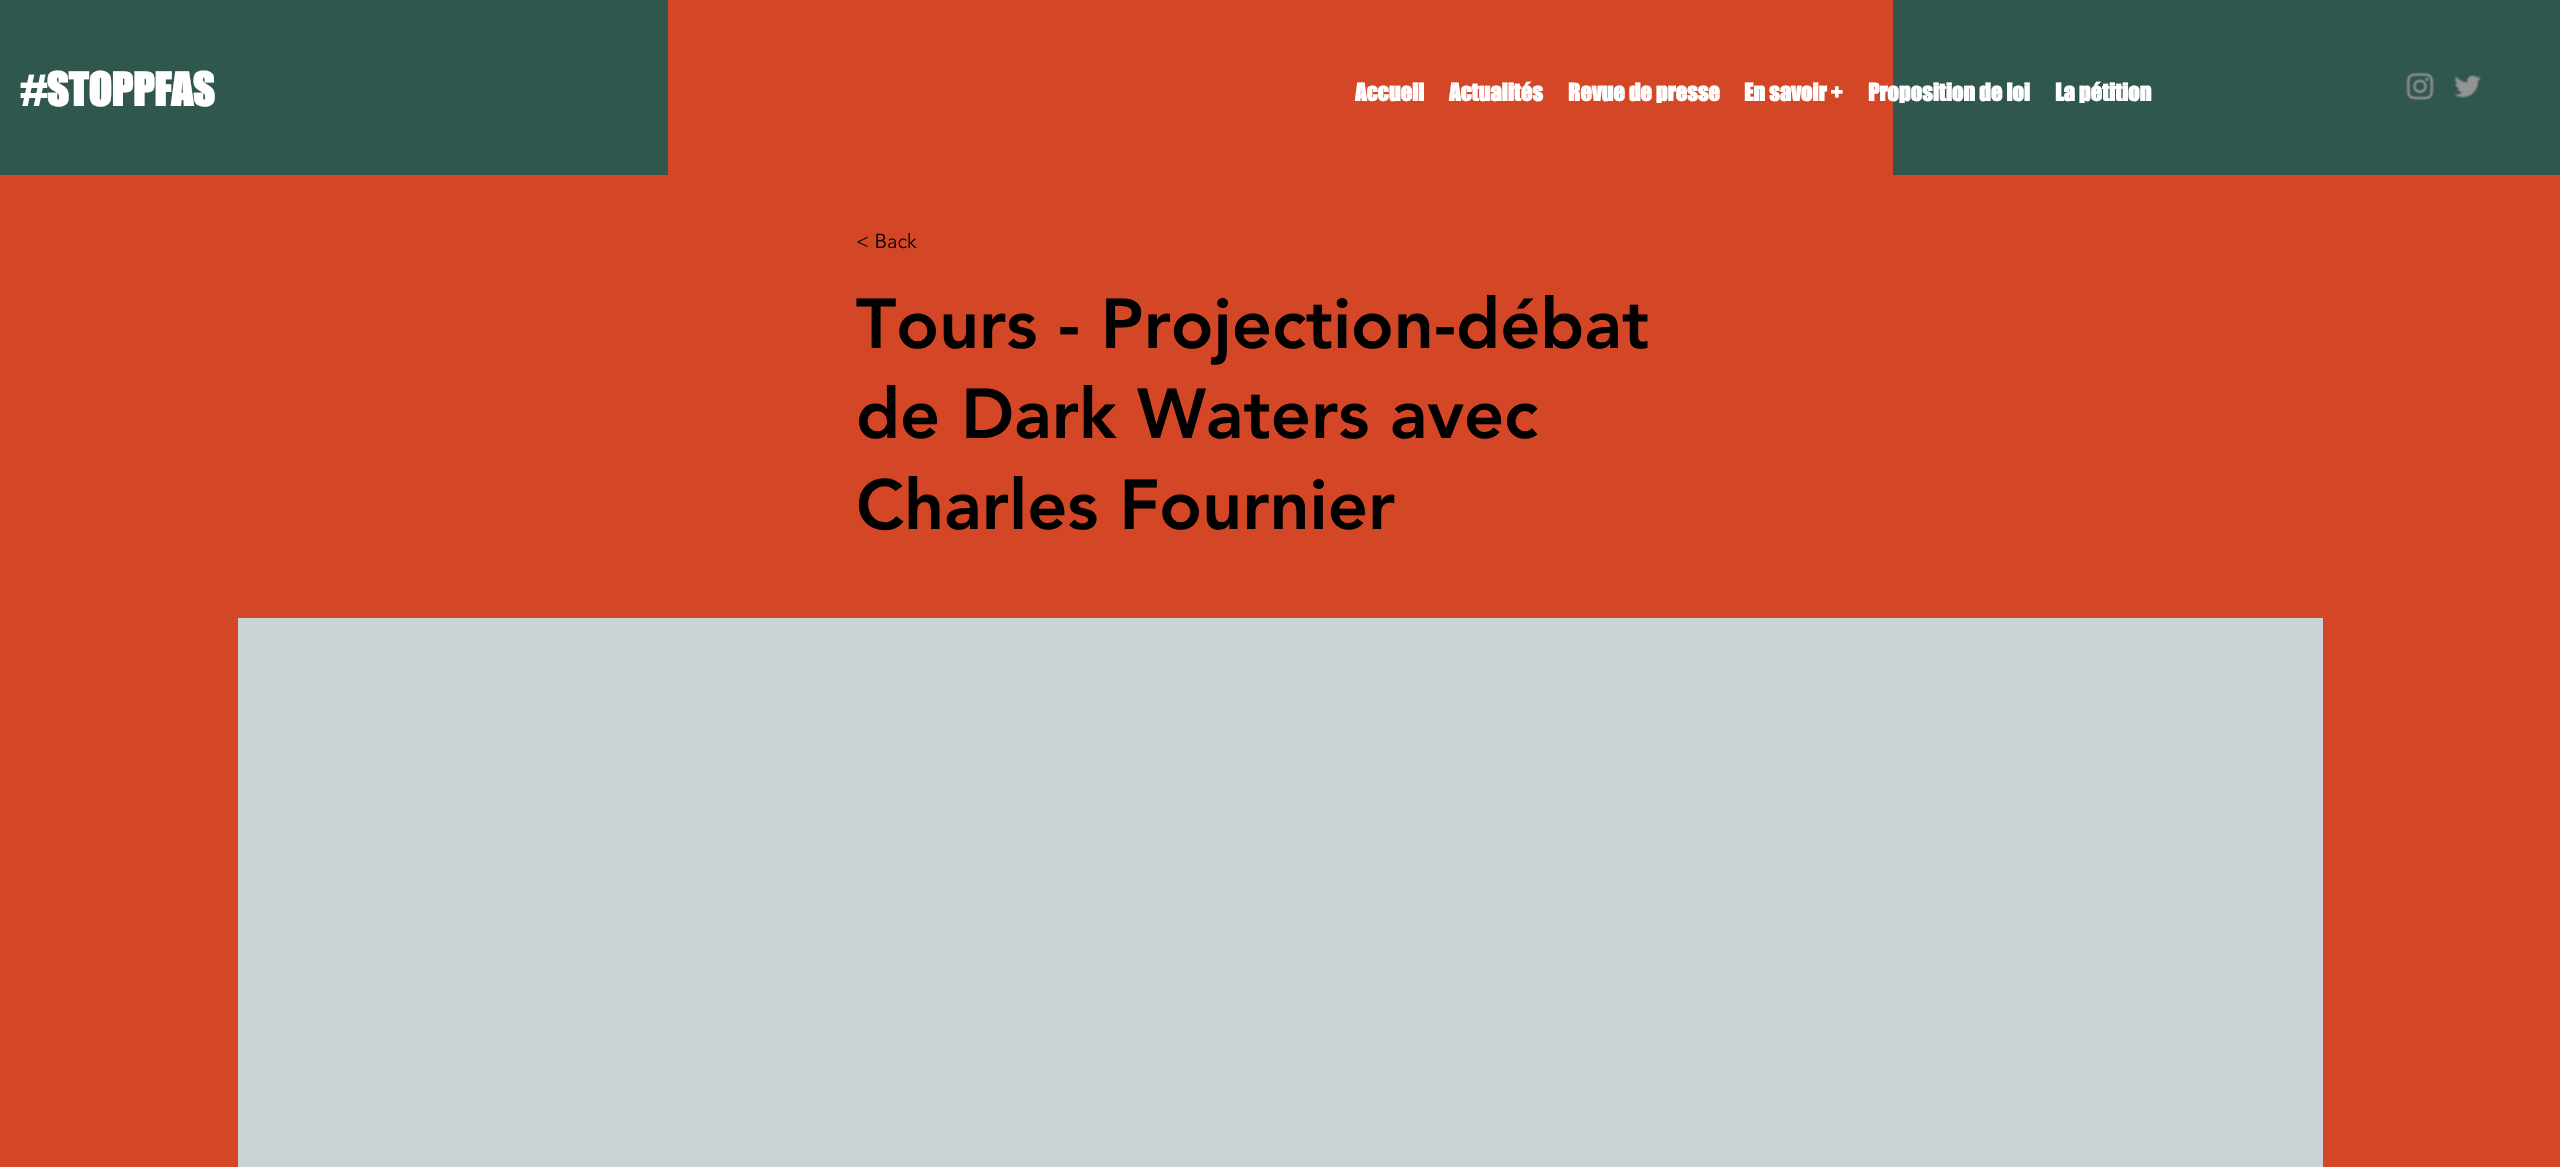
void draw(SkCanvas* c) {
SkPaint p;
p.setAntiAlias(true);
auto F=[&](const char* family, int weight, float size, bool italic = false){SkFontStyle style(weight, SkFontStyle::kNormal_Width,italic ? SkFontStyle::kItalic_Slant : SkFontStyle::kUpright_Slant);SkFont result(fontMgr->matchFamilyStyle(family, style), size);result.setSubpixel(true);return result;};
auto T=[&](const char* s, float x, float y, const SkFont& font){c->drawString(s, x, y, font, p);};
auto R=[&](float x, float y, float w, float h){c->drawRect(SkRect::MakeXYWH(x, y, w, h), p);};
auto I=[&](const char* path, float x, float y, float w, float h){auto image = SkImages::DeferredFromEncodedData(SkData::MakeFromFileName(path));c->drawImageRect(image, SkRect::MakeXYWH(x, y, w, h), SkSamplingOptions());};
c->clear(0xffd44726);
p.setColor(0xff30574e);
R(0,0,2560,175);
p.setColor(0xffd44726);
R(668,0,1225,175);
auto f1 = F("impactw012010",700,42.5);
p.setColor(0xffffffff);
T("#STOPPFAS",20,106,f1);
auto f2 = F("impactw012010",700,22.5);
T("Accueil",1355,101,f2);
T("Actualités",1449,101,f2);
T("Revue de presse",1568,101,f2);
T("En savoir +",1744,101,f2);
T("Proposition de loi",1868,101,f2);
T("La pétition",2055,101,f2);
I("1.png",2405,72,30,29);
I("2.png",2454,74,27,24);
auto f3 = F("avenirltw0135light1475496",300,20);
p.setColor(0xff000000);
T("< Back",856,248,f3);
auto f4 = F("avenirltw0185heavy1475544",900,70);
T("Tours - Projection-débat",856,348,f4);
T("de Dark Waters avec",856,438,f4);
T("Charles Fournier",856,529,f4);
p.setColor(0xffc9d3d6);
R(238,618,2085,549);
}
